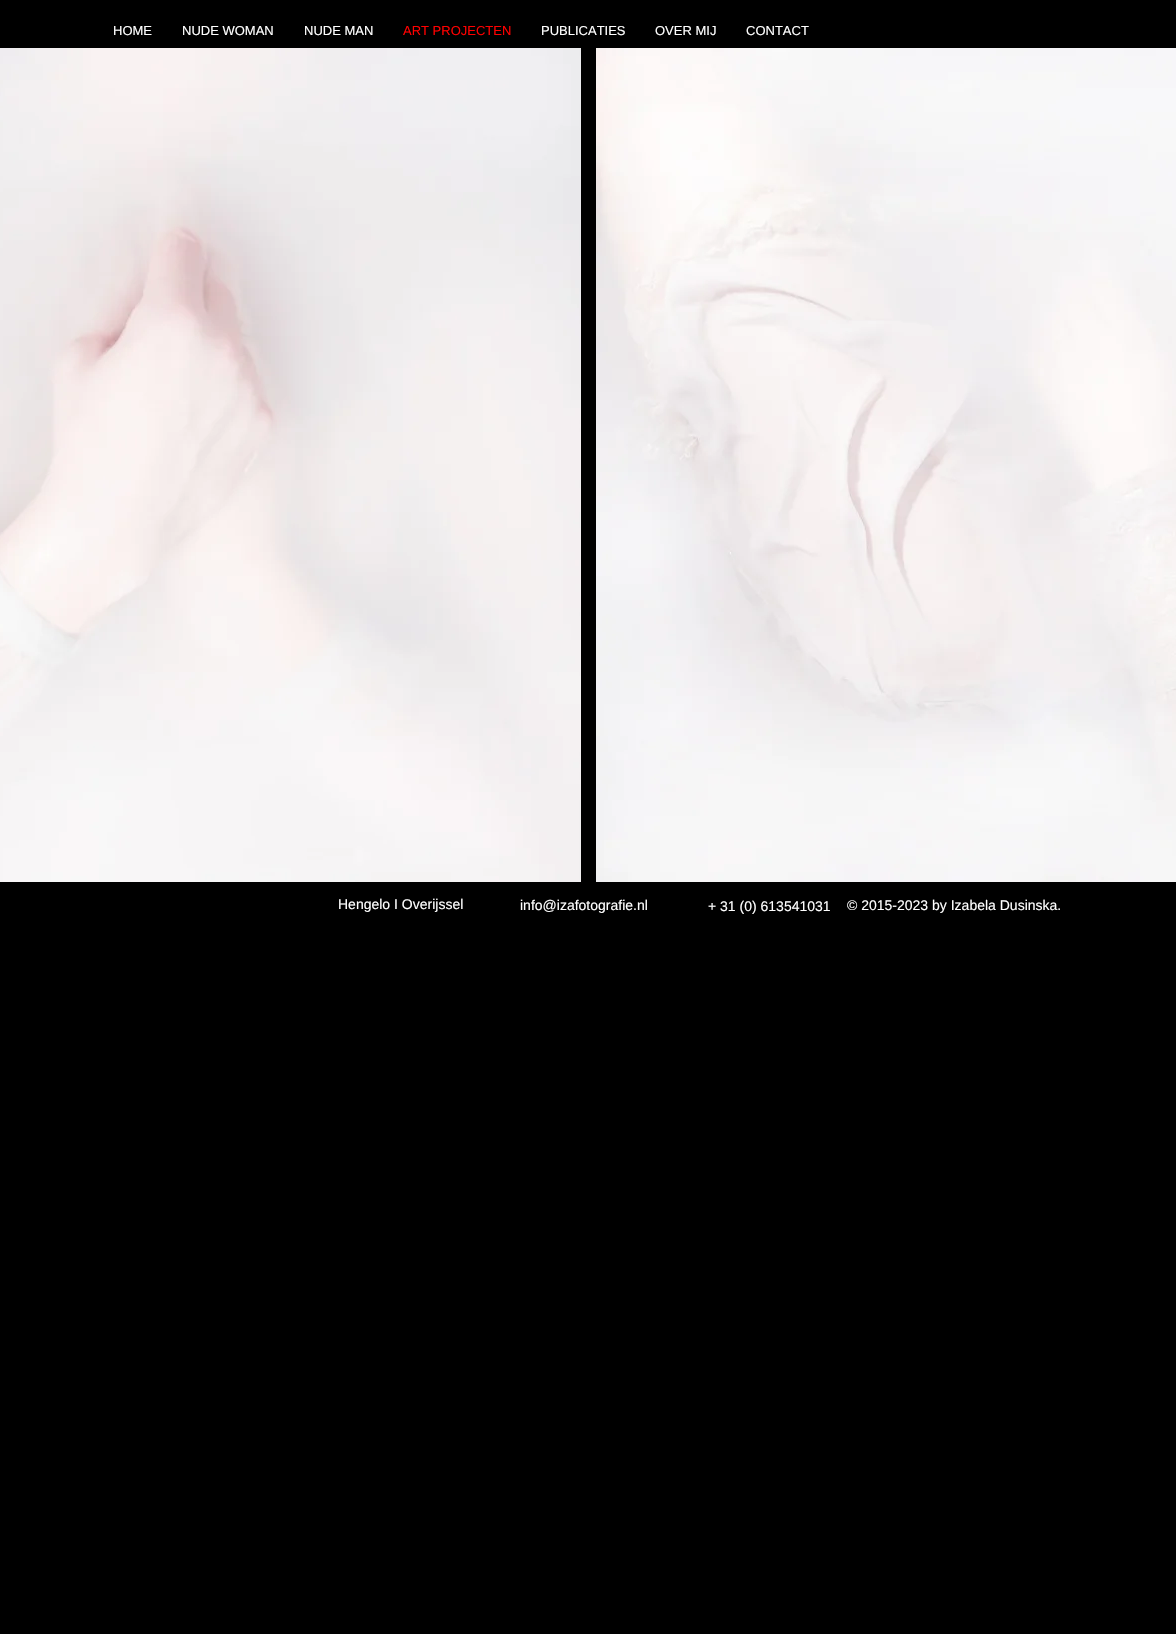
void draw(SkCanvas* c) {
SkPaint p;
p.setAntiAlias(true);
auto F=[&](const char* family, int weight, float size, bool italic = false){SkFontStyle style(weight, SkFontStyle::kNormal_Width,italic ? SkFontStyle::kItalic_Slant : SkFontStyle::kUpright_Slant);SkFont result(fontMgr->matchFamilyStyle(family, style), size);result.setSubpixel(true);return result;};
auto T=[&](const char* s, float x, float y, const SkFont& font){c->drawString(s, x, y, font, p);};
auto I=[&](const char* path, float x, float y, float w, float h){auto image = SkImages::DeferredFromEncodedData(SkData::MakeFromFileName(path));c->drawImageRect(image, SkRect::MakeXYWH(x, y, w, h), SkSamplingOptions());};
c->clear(0xff000000);
auto f1 = F("Liberation Sans",400,13);
p.setColor(0xffffffff);
T("HOME",113,35,f1);
T("NUDE WOMAN",182,35,f1);
T("NUDE MAN",304,35,f1);
p.setColor(0xffff0000);
T("ART PROJECTEN",403,35,f1);
p.setColor(0xffffffff);
T("PUBLICATIES",541,35,f1);
T("OVER MIJ",655,35,f1);
T("CONTACT",746,35,f1);
I("1.png",0,48,581,834);
I("2.png",596,48,580,834);
auto f2 = F("Liberation Sans",400,14);
T("Hengelo I Overijssel",338,909,f2);
T("info@izafotografie.nl",520,910,f2);
T("+ 31 (0) 613541031",708,911,f2);
T("© 2015-2023 by Izabela Dusinska.",847,910,f2);
}
